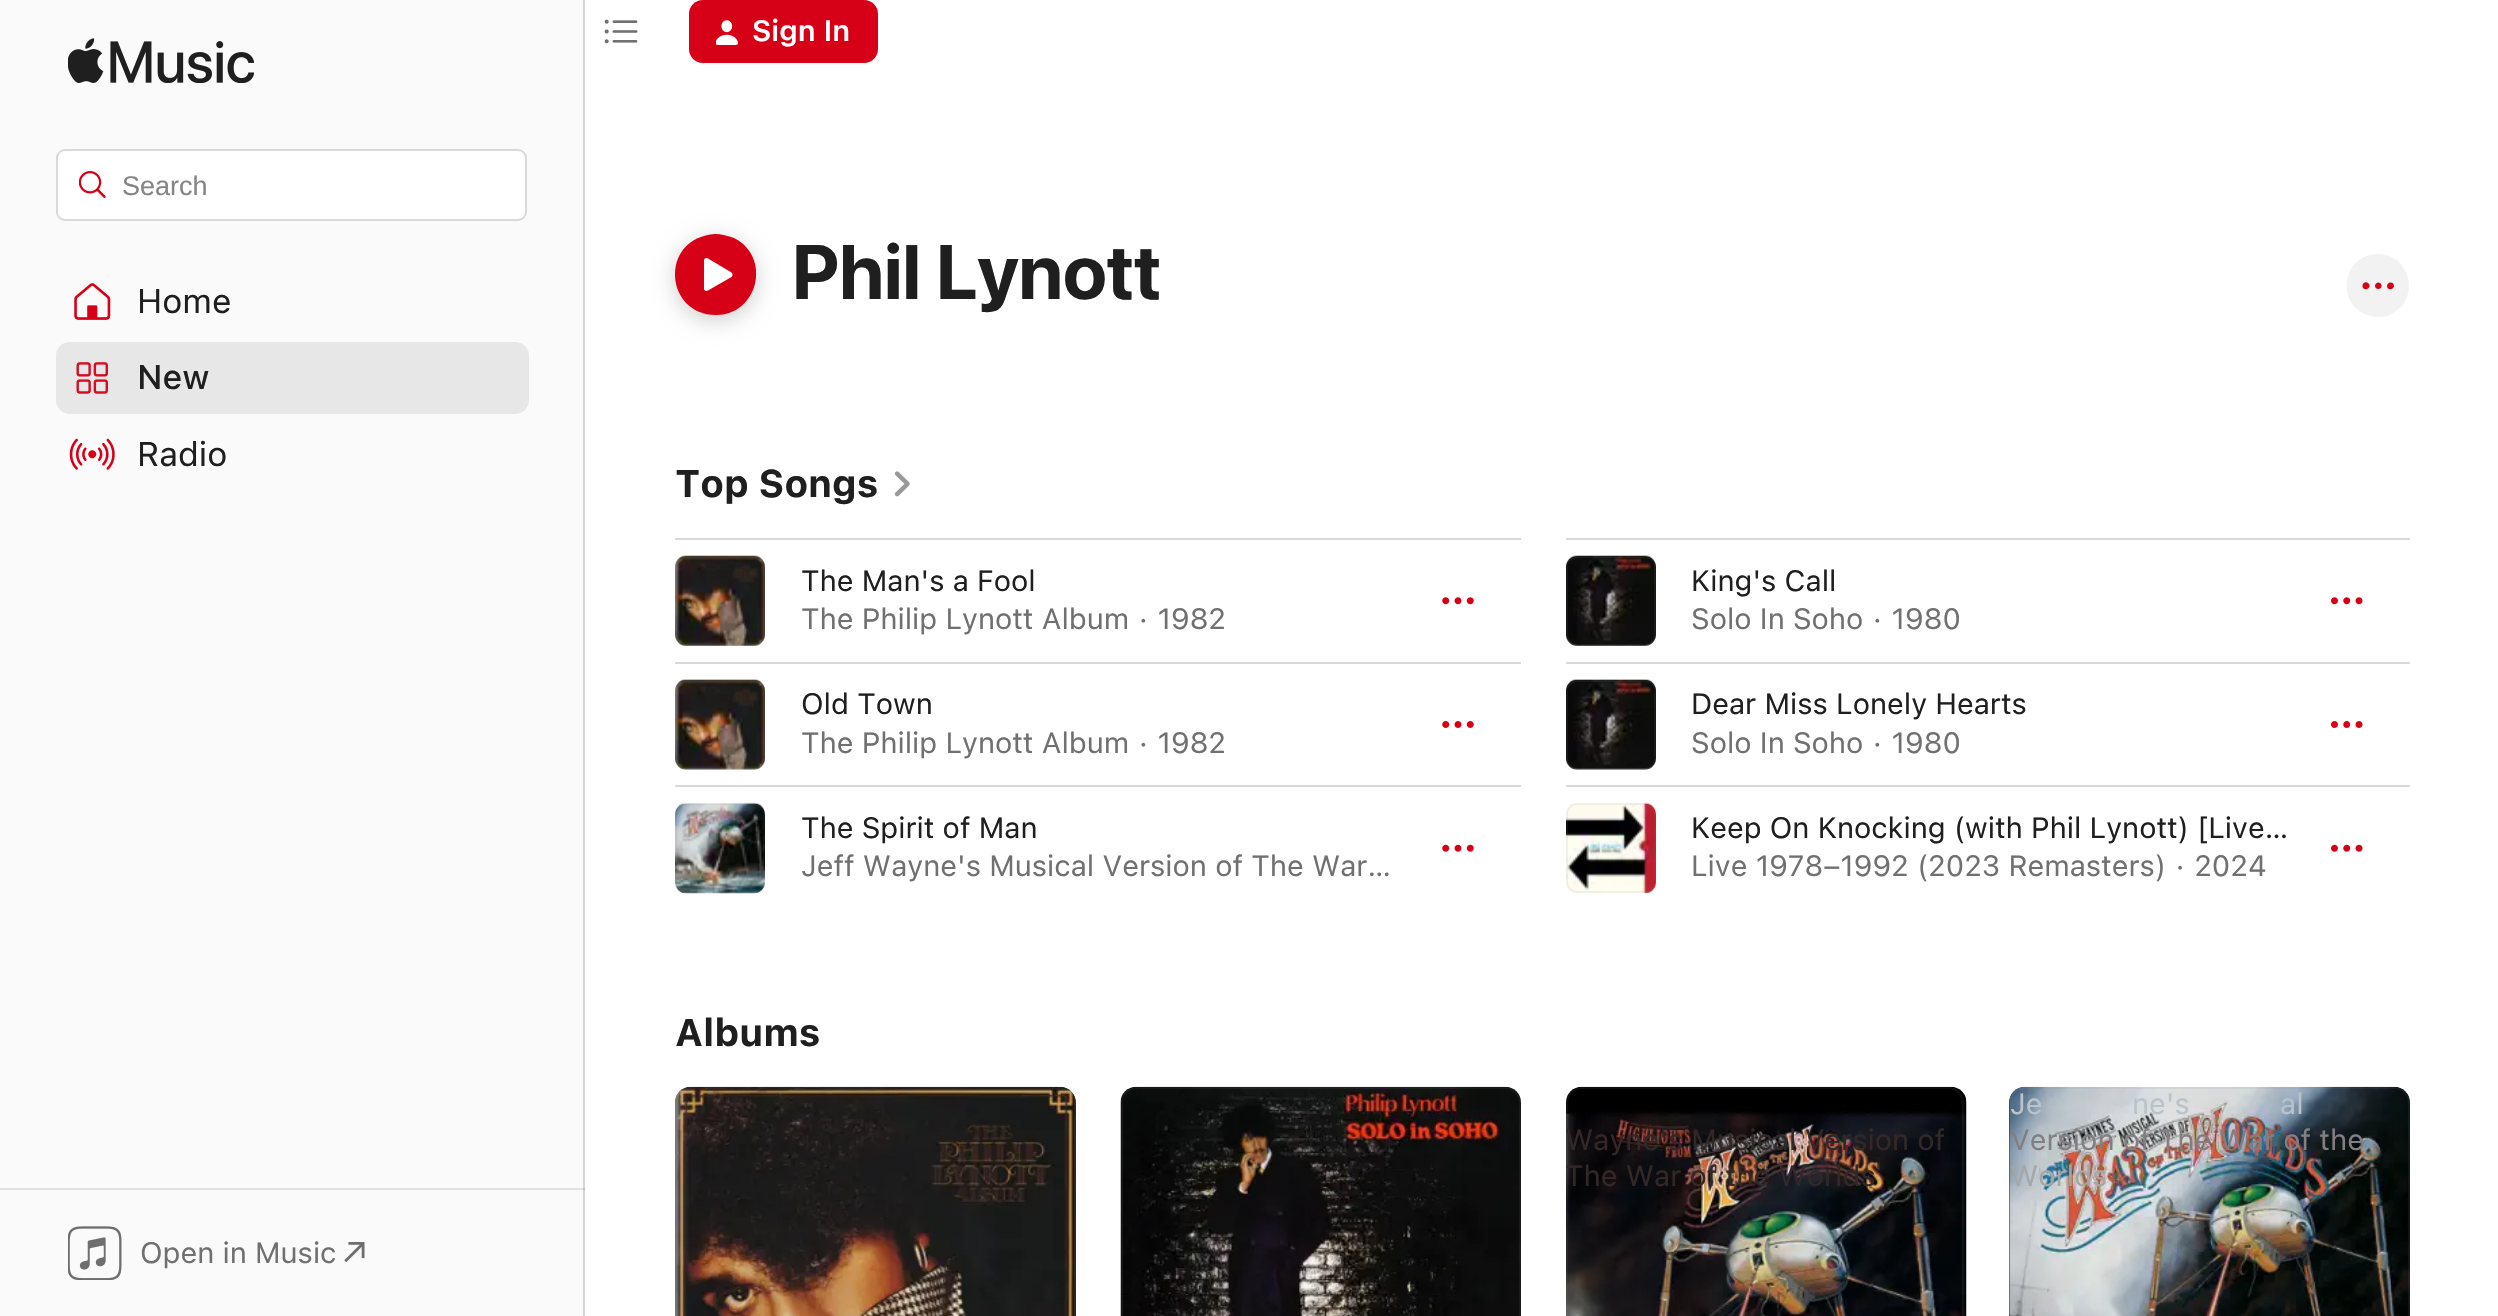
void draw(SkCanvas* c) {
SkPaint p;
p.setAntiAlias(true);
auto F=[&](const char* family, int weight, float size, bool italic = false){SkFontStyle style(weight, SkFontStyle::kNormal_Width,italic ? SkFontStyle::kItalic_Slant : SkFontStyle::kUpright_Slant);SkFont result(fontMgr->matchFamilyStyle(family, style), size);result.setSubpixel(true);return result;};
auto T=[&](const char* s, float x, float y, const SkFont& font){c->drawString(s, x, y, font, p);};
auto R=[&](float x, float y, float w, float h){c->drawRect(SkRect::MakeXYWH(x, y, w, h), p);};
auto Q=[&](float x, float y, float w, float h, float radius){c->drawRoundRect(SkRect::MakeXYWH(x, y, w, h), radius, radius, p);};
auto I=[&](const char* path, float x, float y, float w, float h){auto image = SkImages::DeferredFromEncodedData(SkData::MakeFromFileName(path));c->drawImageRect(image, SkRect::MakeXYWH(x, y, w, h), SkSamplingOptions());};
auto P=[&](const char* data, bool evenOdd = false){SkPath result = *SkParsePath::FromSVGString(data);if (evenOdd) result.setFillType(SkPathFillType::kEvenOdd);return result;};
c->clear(0xffffffff);
I("1.png",604,19,34,25);
p.setColor(0xffd60017);
Q(689,0,189,63,14);
I("2.png",716,20,22,25);
auto f1 = F("SF",600,29.25);
p.setColor(0xffffffff);
T("Sign In",752,41,f1);
p.setColor(0xfffafafa);
R(0,0,583,1316);
p.setColor(0xffe1e1e1);
R(0,1188,585,2);
p.setColor(0xffd5d5d5);
R(583,0,2,1316);
p.setColor(0xffc0c0c0);
R(583,1188,2,2);
I("3.png",68,38,186,45);
p.setColor(0xffffffff);
c->drawRoundRect(SkRect::MakeXYWH(57,150,469,70),8,8,p);
p.setStroke(true);
p.setStrokeWidth(2);
p.setColor(0xffd9d9d9);
c->drawRoundRect(SkRect::MakeXYWH(57,150,469,70),8,8,p);
I("4.png",79,171,27,27);
auto f2 = F("Liberation Sans",400,27);
p.setStroke(false);
p.setColor(0xff858585);
T("Search",122,195,f2);
I("5.png",74,283,37,37);
auto f3 = F("SF",400,34);
p.setColor(0xff1f1f1f);
T("Home",137,313,f3);
p.setColor(0xffe7e7e8);
Q(56,342,473,72,14);
I("6.png",76,362,32,32);
auto f4 = F("SF",500,34);
p.setColor(0xff1f1f1f);
T("New",137,389,f4);
I("7.png",69,438,46,32);
T("Radio",137,466,f3);
I("8.png",68,1226,54,54);
auto f5 = F("SF",400,29.25);
p.setColor(0xff707070);
T("Open in Music",140,1263,f5);
I("9.png",344,1242,21,20);
p.setColor(0x33000000);
p.setMaskFilter(SkMaskFilter::MakeBlur(kNormal_SkBlurStyle, 11));
c->drawRoundRect(SkRect::MakeXYWH(675,239,81,81),40.5,40.5,p);
p.setMaskFilter(nullptr);
c->save();
c->clipRect(SkRect::MakeXYWH(675,234,81,81));
p.setColor(0xffd60017);
c->drawPath(P("M716 315c42 0 56-58 18-77c-6-2-13-4-19-4c-56 4-51 81 1 81z"),p);
c->restore();
p.setColor(0xffffffff);
c->drawPath(P("M708 290.5c-2 1-4 0-4-1.5v-28.5c0-2 2-3 4-2l23.5 14c.5 .5 1 1 1 2c0 1-.5 2-1 2.5z"),p);
auto f6 = F("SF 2",700,76.5);
p.setColor(0xff1f1f1f);
T("Phil Lynott",792,299,f6);
p.setColor(0xfff2f2f2);
c->drawPath(P("M2378 254c32 0 43 44 15 59c-4 3-9 4-15 4c-43-2-40-63 0-63z"),p);
p.setColor(0xffd60017);
c->drawPath(P("M2369.5 286c0-5-7-5-7 0c0 4.5 7 4 7 0zm12 0c0-5-6.5-4.5-6.5 0c0 4 6.5 4 6.5 0zm12.5 0c0-5-7-4.5-7 0c0 4.5 7 4 7 0z"),p);
auto f7 = F("SF",700,38.25);
p.setColor(0xff1f1f1f);
T("Top Songs",675,497,f7);
I("10.png",894,471,16,26);
p.setColor(0xffd9d9d9);
R(675,538,846,2);
I("11.png",675,555,90,91);
p.setStroke(true);
p.setColor(0x1a808080);
c->drawRoundRect(SkRect::MakeXYWH(676,557,88,88),10,10,p);
p.setStroke(false);
p.setColor(0xff1f1f1f);
T("The Man's a Fool",801,591,f5);
p.setColor(0xff707070);
T("The Philip Lynott Album · 1982",801,629,f5);
I("12.png",1442,597,32,8);
p.setColor(0xffd9d9d9);
R(1566,538,844,2);
I("13.png",1566,555,90,91);
p.setStroke(true);
p.setColor(0x1a808080);
c->drawRoundRect(SkRect::MakeXYWH(1567,557,88,88),10,10,p);
p.setStroke(false);
p.setColor(0xff1f1f1f);
T("King's Call",1691,591,f5);
p.setColor(0xff707070);
T("Solo In Soho · 1980",1691,629,f5);
I("14.png",2331,597,32,8);
p.setColor(0xffd9d9d9);
R(675,662,846,2);
I("15.png",675,679,90,91);
p.setStroke(true);
p.setColor(0x1a808080);
c->drawRoundRect(SkRect::MakeXYWH(676,681,88,88),10,10,p);
p.setStroke(false);
p.setColor(0xff1f1f1f);
T("Old Town",801,714,f5);
p.setColor(0xff707070);
T("The Philip Lynott Album · 1982",801,753,f5);
I("16.png",1442,721,32,7);
p.setColor(0xffd9d9d9);
R(1566,662,844,2);
I("17.png",1566,679,90,91);
p.setStroke(true);
p.setColor(0x1a808080);
c->drawRoundRect(SkRect::MakeXYWH(1567,681,88,88),10,10,p);
p.setStroke(false);
p.setColor(0xff1f1f1f);
T("Dear Miss Lonely Hearts",1691,714,f5);
p.setColor(0xff707070);
T("Solo In Soho · 1980",1691,753,f5);
I("18.png",2331,721,32,7);
p.setColor(0xffd9d9d9);
R(675,785,846,2);
I("19.png",675,802,90,92);
p.setStroke(true);
p.setColor(0x1a808080);
c->drawRoundRect(SkRect::MakeXYWH(676,804,88,88),10,10,p);
p.setStroke(false);
p.setColor(0xff1f1f1f);
T("The Spirit of Man",801,838,f5);
p.setColor(0xff707070);
T("Jeff Wayne's Musical Version of The War…",801,876,f5);
I("20.png",1442,844,32,8);
p.setColor(0xffd9d9d9);
R(1566,785,844,2);
I("21.png",1566,802,90,92);
p.setStroke(true);
p.setColor(0x1a808080);
c->drawRoundRect(SkRect::MakeXYWH(1567,804,88,88),10,10,p);
p.setStroke(false);
p.setColor(0xff1f1f1f);
T("Keep On Knocking (with Phil Lynott) [Live…",1691,838,f5);
p.setColor(0xff707070);
T("Live 1978–1992 (2023 Remasters) · 2024",1691,876,f5);
I("22.png",2331,844,32,8);
p.setColor(0xff1f1f1f);
T("Albums",675,1046,f7);
p.setColor(0xff231f1c);
c->drawPath(P("M691 1087h369c9 0 16 7 16 16v213h-401v-213c0-9 7-16 16-16z"),p);
I("23.png",675,1086,401,230);
p.setStroke(true);
p.setColor(0x1a808080);
c->drawRoundRect(SkRect::MakeXYWH(676,1088,399,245),15,15,p);
I("24.png",1120,1086,401,230);
c->drawRoundRect(SkRect::MakeXYWH(1122,1088,398,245),15,15,p);
I("25.png",1566,1086,401,230);
c->drawRoundRect(SkRect::MakeXYWH(1567,1088,396,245),15,15,p);
p.setStroke(false);
p.setColor(0xff332727);
T("Wayne's Musical Version of",1565,1150,f5);
T("The War of the Worlds",1565,1186,f5);
p.setColor(0xff161c22);
c->drawPath(P("M2025 1087h369c9 0 16 7 16 16v213h-401v-213c0-9 7-16 16-16z"),p);
I("26.png",2009,1086,401,230);
p.setStroke(true);
p.setColor(0x1a808080);
c->drawRoundRect(SkRect::MakeXYWH(2010,1088,399,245),15,15,p);
p.setStroke(false);
p.setColor(0xffbac2ca);
T("Je",2010,1114,f5);
T("ne's",2132,1114,f5);
T("al",2280,1114,f5);
p.setColor(0xff827e81);
T("Version of The War of the",2010,1150,f5);
p.setColor(0xffa5a6a8);
T("Worlds",2010,1186,f5);
}
